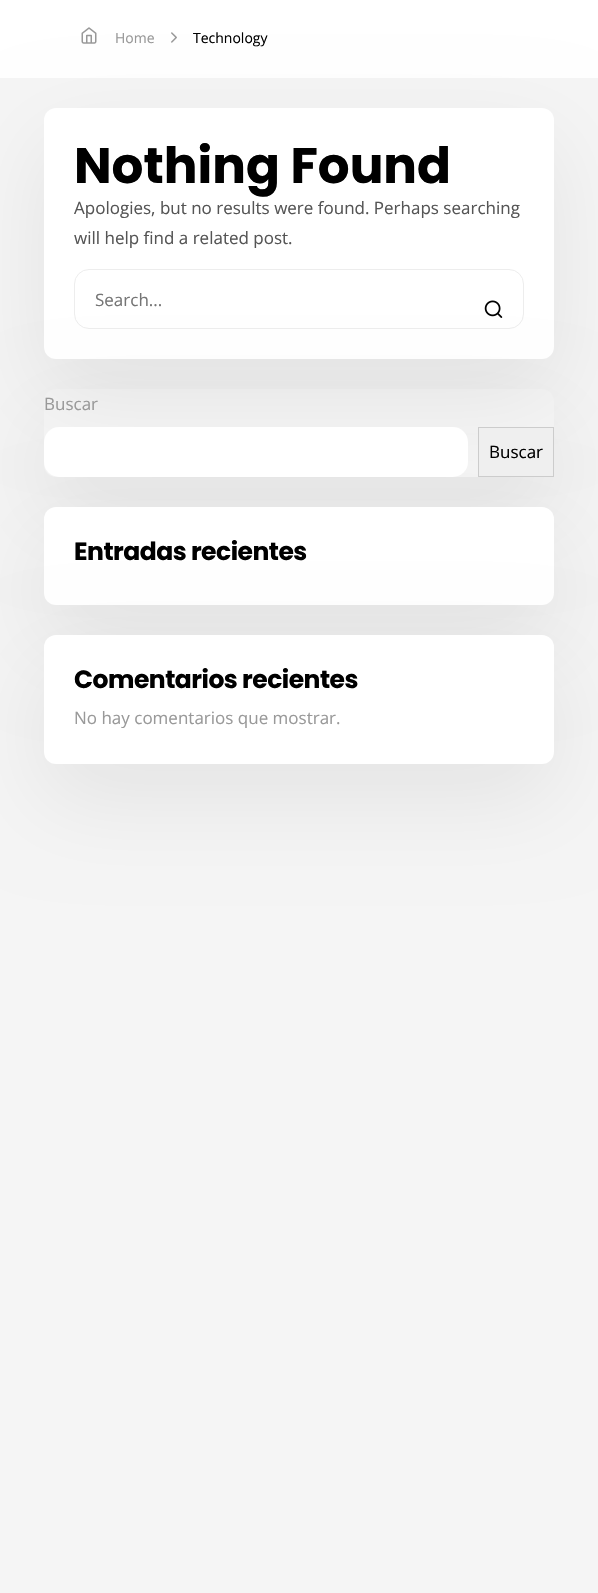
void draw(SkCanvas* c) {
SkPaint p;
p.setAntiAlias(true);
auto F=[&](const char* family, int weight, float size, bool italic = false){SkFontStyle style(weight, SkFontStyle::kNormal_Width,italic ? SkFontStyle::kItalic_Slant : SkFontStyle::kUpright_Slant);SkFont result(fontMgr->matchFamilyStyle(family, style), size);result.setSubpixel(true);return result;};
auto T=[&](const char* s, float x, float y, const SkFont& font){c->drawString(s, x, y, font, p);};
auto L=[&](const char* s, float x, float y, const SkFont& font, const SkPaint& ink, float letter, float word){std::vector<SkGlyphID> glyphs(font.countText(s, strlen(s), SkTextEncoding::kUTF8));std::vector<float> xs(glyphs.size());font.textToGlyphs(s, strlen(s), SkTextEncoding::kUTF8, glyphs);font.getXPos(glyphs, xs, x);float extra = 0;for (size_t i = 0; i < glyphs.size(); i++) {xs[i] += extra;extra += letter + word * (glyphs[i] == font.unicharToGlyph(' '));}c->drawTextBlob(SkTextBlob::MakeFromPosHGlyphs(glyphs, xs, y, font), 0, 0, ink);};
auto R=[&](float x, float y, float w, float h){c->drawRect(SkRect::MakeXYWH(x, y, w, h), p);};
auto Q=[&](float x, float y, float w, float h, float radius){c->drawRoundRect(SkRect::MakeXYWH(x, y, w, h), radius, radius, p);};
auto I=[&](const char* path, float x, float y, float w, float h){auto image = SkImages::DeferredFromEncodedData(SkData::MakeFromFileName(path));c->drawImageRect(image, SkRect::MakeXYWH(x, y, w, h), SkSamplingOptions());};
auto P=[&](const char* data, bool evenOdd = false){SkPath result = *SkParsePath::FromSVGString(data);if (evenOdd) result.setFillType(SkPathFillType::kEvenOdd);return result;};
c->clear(0xfff5f5f5);
p.setColor(0xffffffff);
R(0,0,598,78);
I("1.png",81,27,16,17);
auto f1 = F("Open Sans",400,14);
p.setColor(0xff999999);
T("Home",115,43,f1);
I("2.png",171,32,6,11);
p.setColor(0xff000000);
T("Technology",193,43,f1);
p.setColor(0x12000000);
p.setMaskFilter(SkMaskFilter::MakeBlur(kNormal_SkBlurStyle, 45));
c->drawRoundRect(SkRect::MakeXYWH(44,142,510,251),12,12,p);
p.setMaskFilter(nullptr);
p.setColor(0xffffffff);
Q(44,108,510,251,12);
auto f2 = F("Poppins",700,50);
p.setColor(0xff000000);
T("Nothing Found",74,183,f2);
auto f3 = F("Open Sans",400,17);
p.setColor(0xff555555);
T("Apologies, but no results were found. Perhaps searching",74,214,f3);
T("will help find a related post.",74,244,f3);
p.setStroke(true);
p.setStrokeWidth(1);
p.setColor(0xffededed);
c->drawRoundRect(SkRect::MakeXYWH(74.5,269.5,449,59),14.5,14.5,p);
p.setStroke(false);
p.setColor(0xff757575);
T("Search...",95,306,f3);
I("3.png",484,300,19,18);
c->save();
c->clipPath(P("M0 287h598v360h-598zm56 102h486c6.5 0 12 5.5 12 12v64c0 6.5-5.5 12-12 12h-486c-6.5 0-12-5.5-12-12v-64c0-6.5 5.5-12 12-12z",true),true);
p.setColor(0x12000000);
p.setMaskFilter(SkMaskFilter::MakeBlur(kNormal_SkBlurStyle, 45));
c->drawRoundRect(SkRect::MakeXYWH(44,423,510,88),12,12,p);
p.setMaskFilter(nullptr);
c->restore();
p.setMaskFilter(SkMaskFilter::MakeBlur(kNormal_SkBlurStyle, 45));
c->drawRoundRect(SkRect::MakeXYWH(44,541,510,98),12,12,p);
p.setMaskFilter(nullptr);
p.setColor(0xff999999);
T("Buscar",44,410,f3);
p.setColor(0xffffffff);
Q(44,427,424,50,15);
p.setColor(0xffefefef);
c->drawRect(SkRect::MakeXYWH(478.5,427.5,75,49),p);
p.setStroke(true);
p.setColor(0xffcccccc);
c->drawRect(SkRect::MakeXYWH(478.5,427.5,75,49),p);
p.setStroke(false);
p.setColor(0xff000000);
T("Buscar",489,458,f3);
p.setColor(0xffffffff);
Q(44,507,510,98,12);
p.setColor(0x12000000);
p.setMaskFilter(SkMaskFilter::MakeBlur(kNormal_SkBlurStyle, 45));
c->drawRoundRect(SkRect::MakeXYWH(44,669,510,129),12,12,p);
p.setMaskFilter(nullptr);
auto f4 = F("Poppins",700,25);
p.setColor(0xff000000);
L("Entradas recientes",74,560,f4,p,-.5,0);
p.setColor(0xffffffff);
Q(44,635,510,129,12);
p.setColor(0xff000000);
L("Comentarios recientes",74,688,f4,p,-.5,0);
p.setColor(0xff999999);
T("No hay comentarios que mostrar.",74,724,f3);
}
